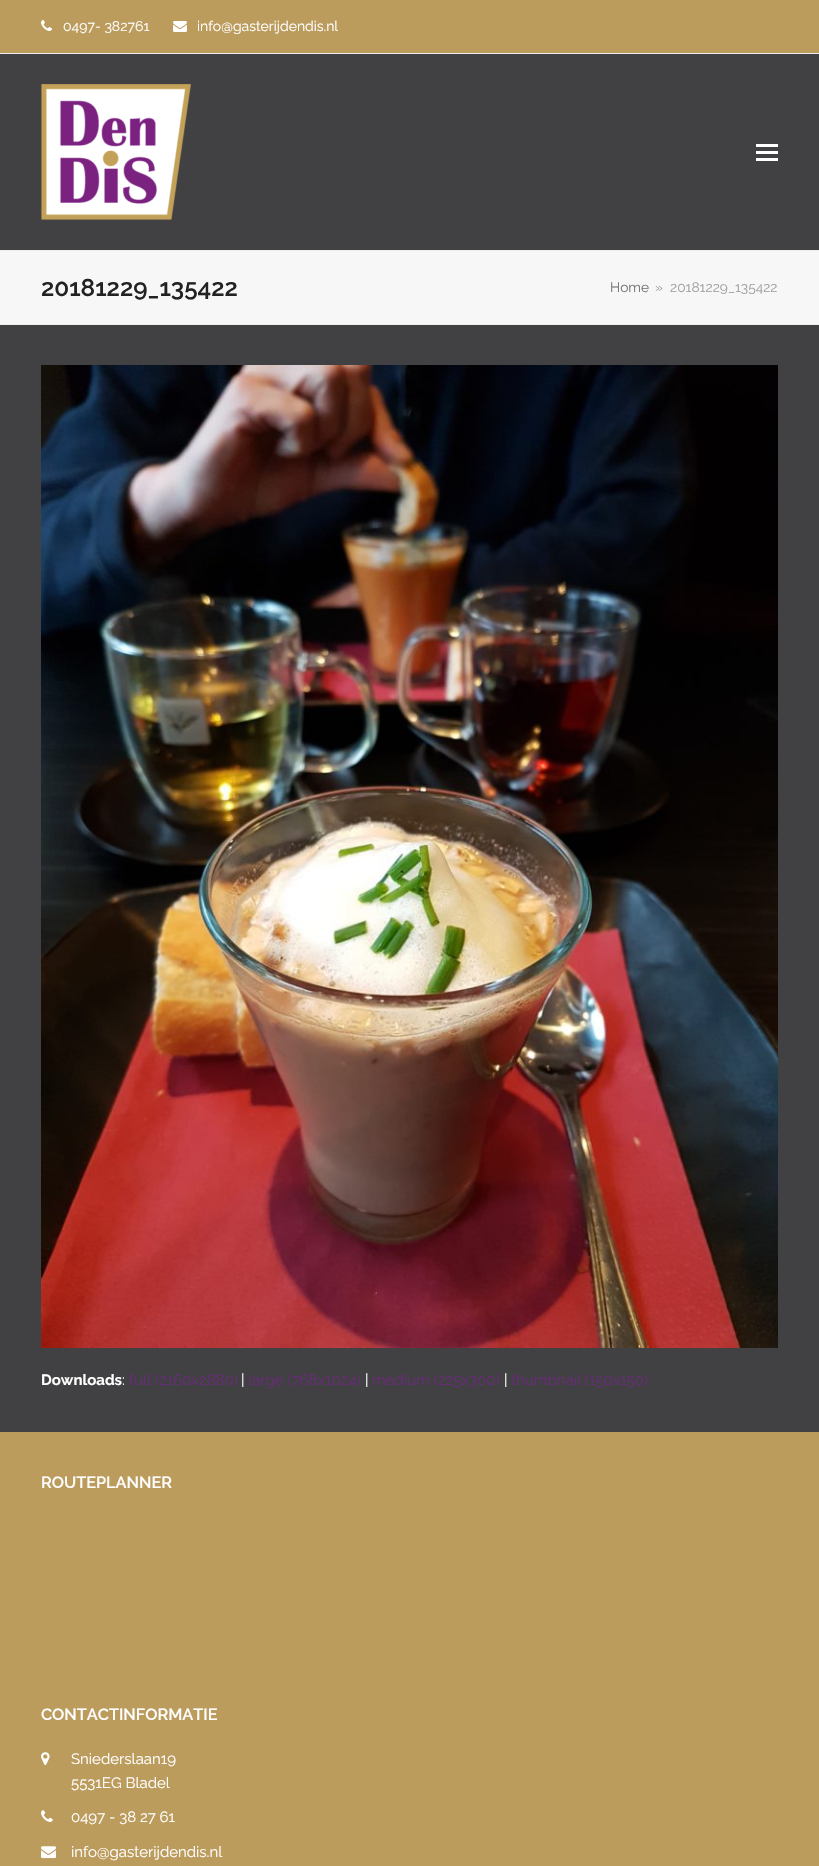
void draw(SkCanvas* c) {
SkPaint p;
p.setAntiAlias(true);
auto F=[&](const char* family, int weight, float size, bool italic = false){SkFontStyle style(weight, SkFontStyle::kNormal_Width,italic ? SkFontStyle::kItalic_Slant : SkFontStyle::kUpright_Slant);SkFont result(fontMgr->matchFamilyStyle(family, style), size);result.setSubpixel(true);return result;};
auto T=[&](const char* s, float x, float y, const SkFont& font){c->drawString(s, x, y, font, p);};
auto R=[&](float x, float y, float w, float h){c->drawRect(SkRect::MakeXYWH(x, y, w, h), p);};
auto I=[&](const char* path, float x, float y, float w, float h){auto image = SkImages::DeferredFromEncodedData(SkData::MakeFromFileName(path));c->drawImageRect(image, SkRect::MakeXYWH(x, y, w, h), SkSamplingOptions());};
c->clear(0xff414042);
p.setColor(0xffbc9c5d);
R(0,0,819,53);
p.setColor(0xffeeeeee);
R(0,53,819,1);
I("1.png",41,20,11,11);
auto f1 = F("Raleway",400,14);
p.setColor(0xffffffff);
T("0497- 382761",63,31,f1);
I("2.png",173,21,14,11);
T("info@gasterijdendis.nl",197,31,f1);
I("3.png",41,84,150,136);
R(756,151,22,3);
R(756,144,22,3);
R(756,158,22,3);
p.setColor(0xfff7f7f7);
R(0,251,819,73);
p.setColor(0xffeeeeee);
R(0,250,819,1);
R(0,324,819,1);
auto f2 = F("Raleway",600,24.25);
p.setColor(0xff222222);
T("20181229_135422",41,296,f2);
auto f3 = F("Raleway",400,13.75);
p.setColor(0xff757575);
T("Home",610,292,f3);
p.setColor(0xff9e9e9e);
T("»",655,292,f3);
T("20181229_135422",670,292,f3);
I("4.png",41,365,737,983);
auto f4 = F("Raleway",700,15);
p.setColor(0xffffffff);
T("Downloads",41,1385,f4);
auto f5 = F("Raleway",400,15);
T(":",122,1385,f5);
p.setColor(0xff6a2a7a);
T("full (2160x2880)",129,1385,f5);
p.setColor(0xffffffff);
T("|",241,1385,f5);
p.setColor(0xff6a2a7a);
T("large (768x1024)",248,1385,f5);
p.setColor(0xffffffff);
T("|",365,1385,f5);
p.setColor(0xff6a2a7a);
T("medium (225x300)",372,1385,f5);
p.setColor(0xffffffff);
T("|",504,1385,f5);
p.setColor(0xff6a2a7a);
T("thumbnail (150x150)",511,1385,f5);
p.setColor(0xffbc9c5d);
R(0,1432,819,434);
auto f6 = F("Raleway",600,16.25);
p.setColor(0xffffffff);
T("ROUTEPLANNER",41,1488,f6);
T("CONTACTINFORMATIE",41,1720,f6);
I("5.png",41,1752,9,13);
T("Sniederslaan19",71,1764,f5);
T("5531EG Bladel",71,1788,f5);
I("6.png",41,1810,12,12);
T("0497 - 38 27 61",71,1822,f5);
I("7.png",41,1846,15,13);
T("info@gasterijdendis.nl",71,1857,f5);
}
